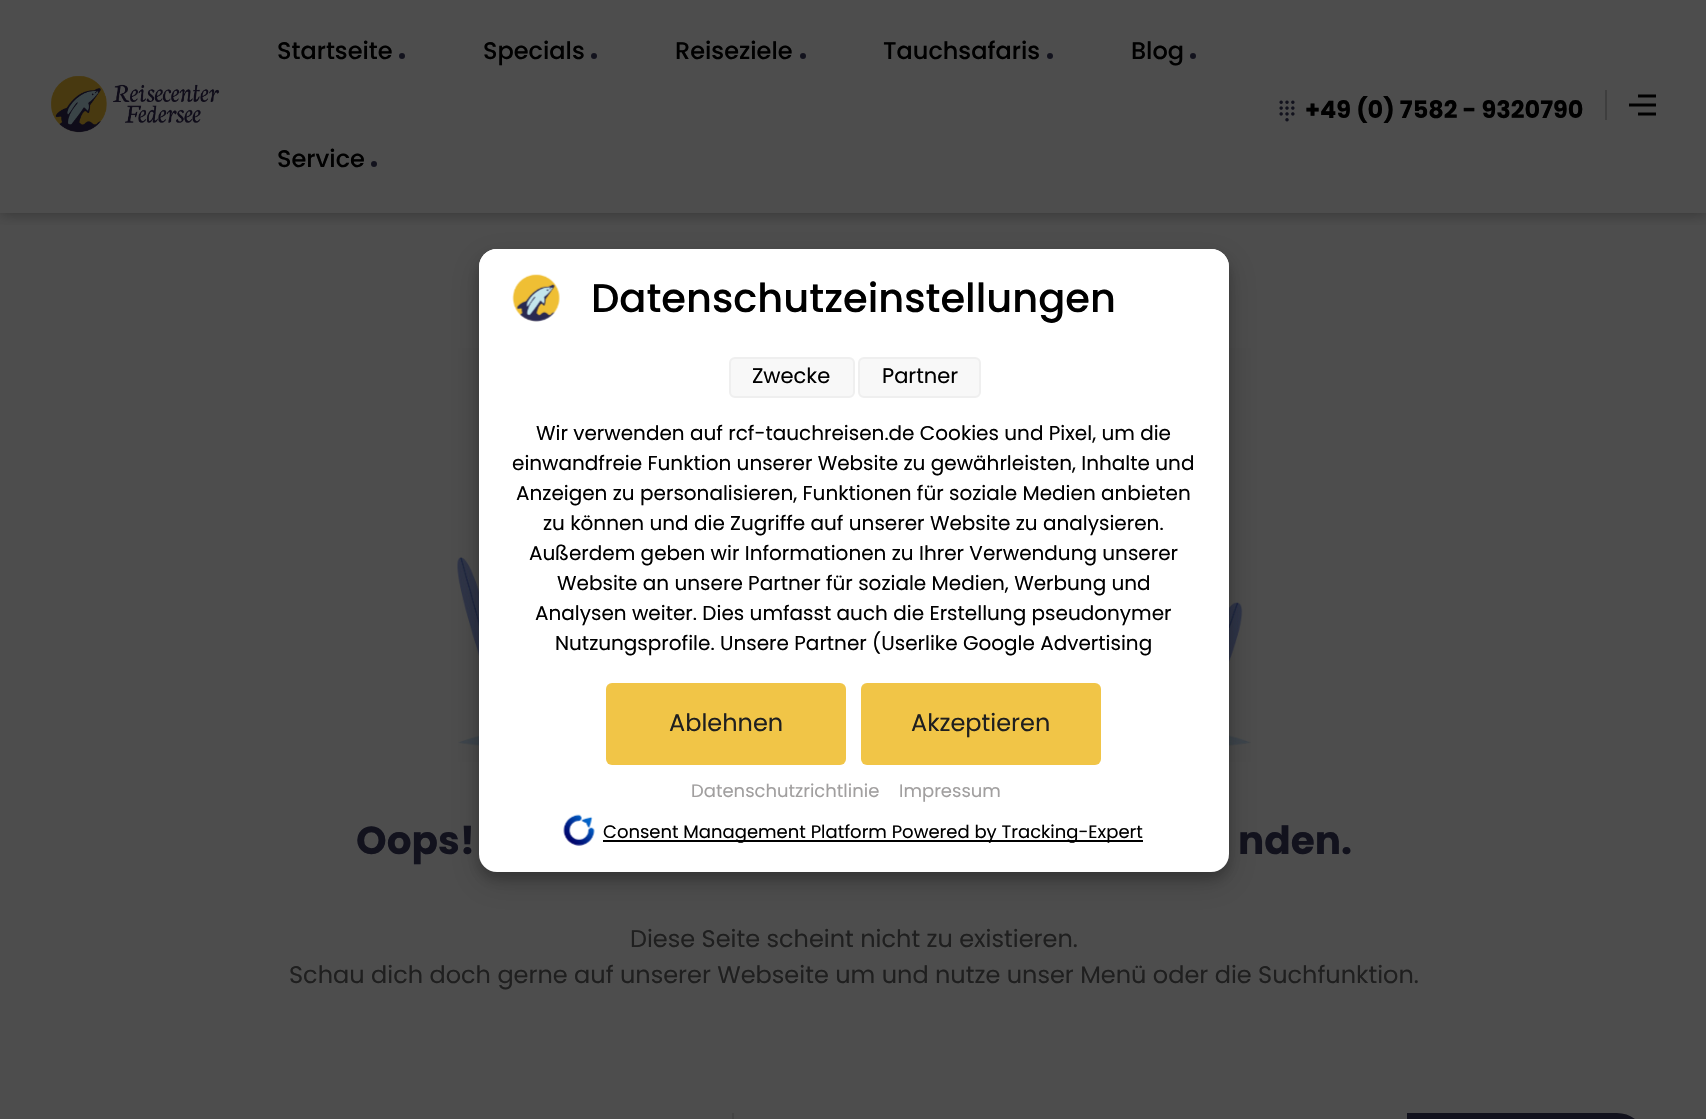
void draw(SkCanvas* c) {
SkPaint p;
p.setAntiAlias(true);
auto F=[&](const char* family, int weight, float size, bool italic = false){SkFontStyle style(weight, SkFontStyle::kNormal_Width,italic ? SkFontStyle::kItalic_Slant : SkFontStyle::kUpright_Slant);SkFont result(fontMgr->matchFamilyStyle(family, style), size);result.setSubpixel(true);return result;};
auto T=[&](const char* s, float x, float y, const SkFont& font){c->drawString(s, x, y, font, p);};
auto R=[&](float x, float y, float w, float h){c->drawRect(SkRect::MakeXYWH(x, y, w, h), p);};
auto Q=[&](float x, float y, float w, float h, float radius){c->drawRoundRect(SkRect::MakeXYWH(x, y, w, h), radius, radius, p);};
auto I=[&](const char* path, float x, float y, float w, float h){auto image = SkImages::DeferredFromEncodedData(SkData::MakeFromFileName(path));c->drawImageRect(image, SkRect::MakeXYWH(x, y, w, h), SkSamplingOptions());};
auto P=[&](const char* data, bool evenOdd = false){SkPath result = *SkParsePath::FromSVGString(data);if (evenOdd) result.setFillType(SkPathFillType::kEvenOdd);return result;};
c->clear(0xff4d4d4d);
c->save();
c->clipRect(SkRect::MakeXYWH(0,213,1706,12));
p.setColor(0x59000000);
p.setMaskFilter(SkMaskFilter::MakeBlur(kNormal_SkBlurStyle, 7.5));
c->drawRect(SkRect::MakeXYWH(0,-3,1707,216),p);
p.setMaskFilter(nullptr);
c->restore();
I("1.png",51,76,169,57);
auto f1 = F("Poppins",500,24);
p.setColor(0xff000000);
T("Startseite",277,59,f1);
p.setColor(0xff12121d);
c->drawCircle(402,56,3,p);
p.setColor(0xff000000);
T("Specials",483,59,f1);
p.setColor(0xff12121d);
c->drawCircle(594,56,3,p);
p.setColor(0xff000000);
T("Reiseziele",675,59,f1);
p.setColor(0xff12121d);
c->drawCircle(803,56,3,p);
p.setColor(0xff000000);
T("Tauchsafaris",883,59,f1);
p.setColor(0xff12121d);
c->drawCircle(1050,56,3,p);
p.setColor(0xff000000);
T("Blog",1131,59,f1);
p.setColor(0xff12121d);
c->drawCircle(1193,56,3,p);
p.setColor(0xff000000);
T("Service",277,167,f1);
p.setColor(0xff12121d);
c->drawCircle(374,164,3,p);
I("2.png",1279,100,16,22);
auto f2 = F("Poppins",700,24);
p.setColor(0xff000000);
T("+49 (0) 7582 - 9320790",1305,118,f2);
p.setColor(0xff3e3e3e);
R(1605,90,2,30);
I("3.png",1629,94,27,22);
I("4.png",457,348,794,414);
auto f3 = F("Poppins",700,39);
p.setColor(0xff12121d);
T("Oops!",356,854,f3);
T("nden.",1238,854,f3);
auto f4 = F("Poppins",400,24);
p.setColor(0xff1f1f1f);
T("Diese Seite scheint nicht zu existieren.",630,947,f4);
T("Schau dich doch gerne auf unserer Webseite um und nutze unser Menü oder die Suchfunktion.",289,983,f4);
p.setColor(0xff454545);
R(732,1113,2,6);
p.setColor(0xff12121d);
c->drawPath(P("M1407 1113h210c16.5 0 30 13.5 30 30v-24c0 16.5-13.5 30-30 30h-210z"),p);
p.setColor(0x2b000000);
p.setMaskFilter(SkMaskFilter::MakeBlur(kNormal_SkBlurStyle, 15));
c->drawRoundRect(SkRect::MakeXYWH(479,260,750,622),18,18,p);
p.setMaskFilter(nullptr);
p.setColor(0x33000000);
p.setMaskFilter(SkMaskFilter::MakeBlur(kNormal_SkBlurStyle, 6));
c->drawRoundRect(SkRect::MakeXYWH(479,257,750,622),18,18,p);
p.setMaskFilter(nullptr);
p.setColor(0xffffffff);
Q(479,249,750,623,18);
c->drawPath(P("M497 249h714c10 0 18 8 18 18v60h-750v-60c0-10 8-18 18-18z"),p);
I("5.png",512,274,48,48);
auto f5 = F("Poppins",500,40);
p.setColor(0xff000000);
T("Datenschutzeinstellungen",591,312,f5);
p.setColor(0xfff8f8f8);
c->drawRoundRect(SkRect::MakeXYWH(730,358,124,39),5,5,p);
p.setStroke(true);
p.setStrokeWidth(2);
p.setColor(0xffefefef);
c->drawRoundRect(SkRect::MakeXYWH(730,358,124,39),5,5,p);
auto f6 = F("Poppins",400,21);
p.setStroke(false);
p.setColor(0xff000000);
T("Zwecke",752,383,f6);
p.setColor(0xfff8f8f8);
c->drawRoundRect(SkRect::MakeXYWH(859,358,121,39),5,5,p);
p.setStroke(true);
p.setColor(0xffefefef);
c->drawRoundRect(SkRect::MakeXYWH(859,358,121,39),5,5,p);
p.setStroke(false);
p.setColor(0xff000000);
T("Partner",882,383,f6);
auto f7 = F("Poppins",400,20);
T("Wir verwenden auf rcf-tauchreisen.de Cookies und Pixel, um die",536,440,f7);
T("einwandfreie Funktion unserer Website zu gewährleisten, Inhalte und",512,470,f7);
T("Anzeigen zu personalisieren, Funktionen für soziale Medien anbieten",516,500,f7);
T("zu können und die Zugriffe auf unserer Website zu analysieren.",543,530,f7);
T("Außerdem geben wir Informationen zu Ihrer Verwendung unserer",529,560,f7);
T("Website an unsere Partner für soziale Medien, Werbung und",557,590,f7);
T("Analysen weiter. Dies umfasst auch die Erstellung pseudonymer",535,620,f7);
T("Nutzungsprofile. Unsere Partner (Userlike Google Advertising",555,650,f7);
p.setColor(0xfff1c547);
Q(606,683,240,82,6);
p.setColor(0xff1f1f1f);
T("Ablehnen",669,731,f4);
p.setColor(0xfff1c547);
Q(861,683,240,82,6);
p.setColor(0xff1f1f1f);
T("Akzeptieren",911,731,f4);
auto f8 = F("Poppins",400,18);
p.setColor(0xffa19f9f);
T("Datenschutzrichtlinie",691,797,f8);
T("Impressum",899,797,f8);
I("6.png",563,814,32,32);
p.setColor(0xff000000);
R(603,840,540,2);
T("Consent Management Platform Powered by Tracking-Expert",603,838,f8);
}
